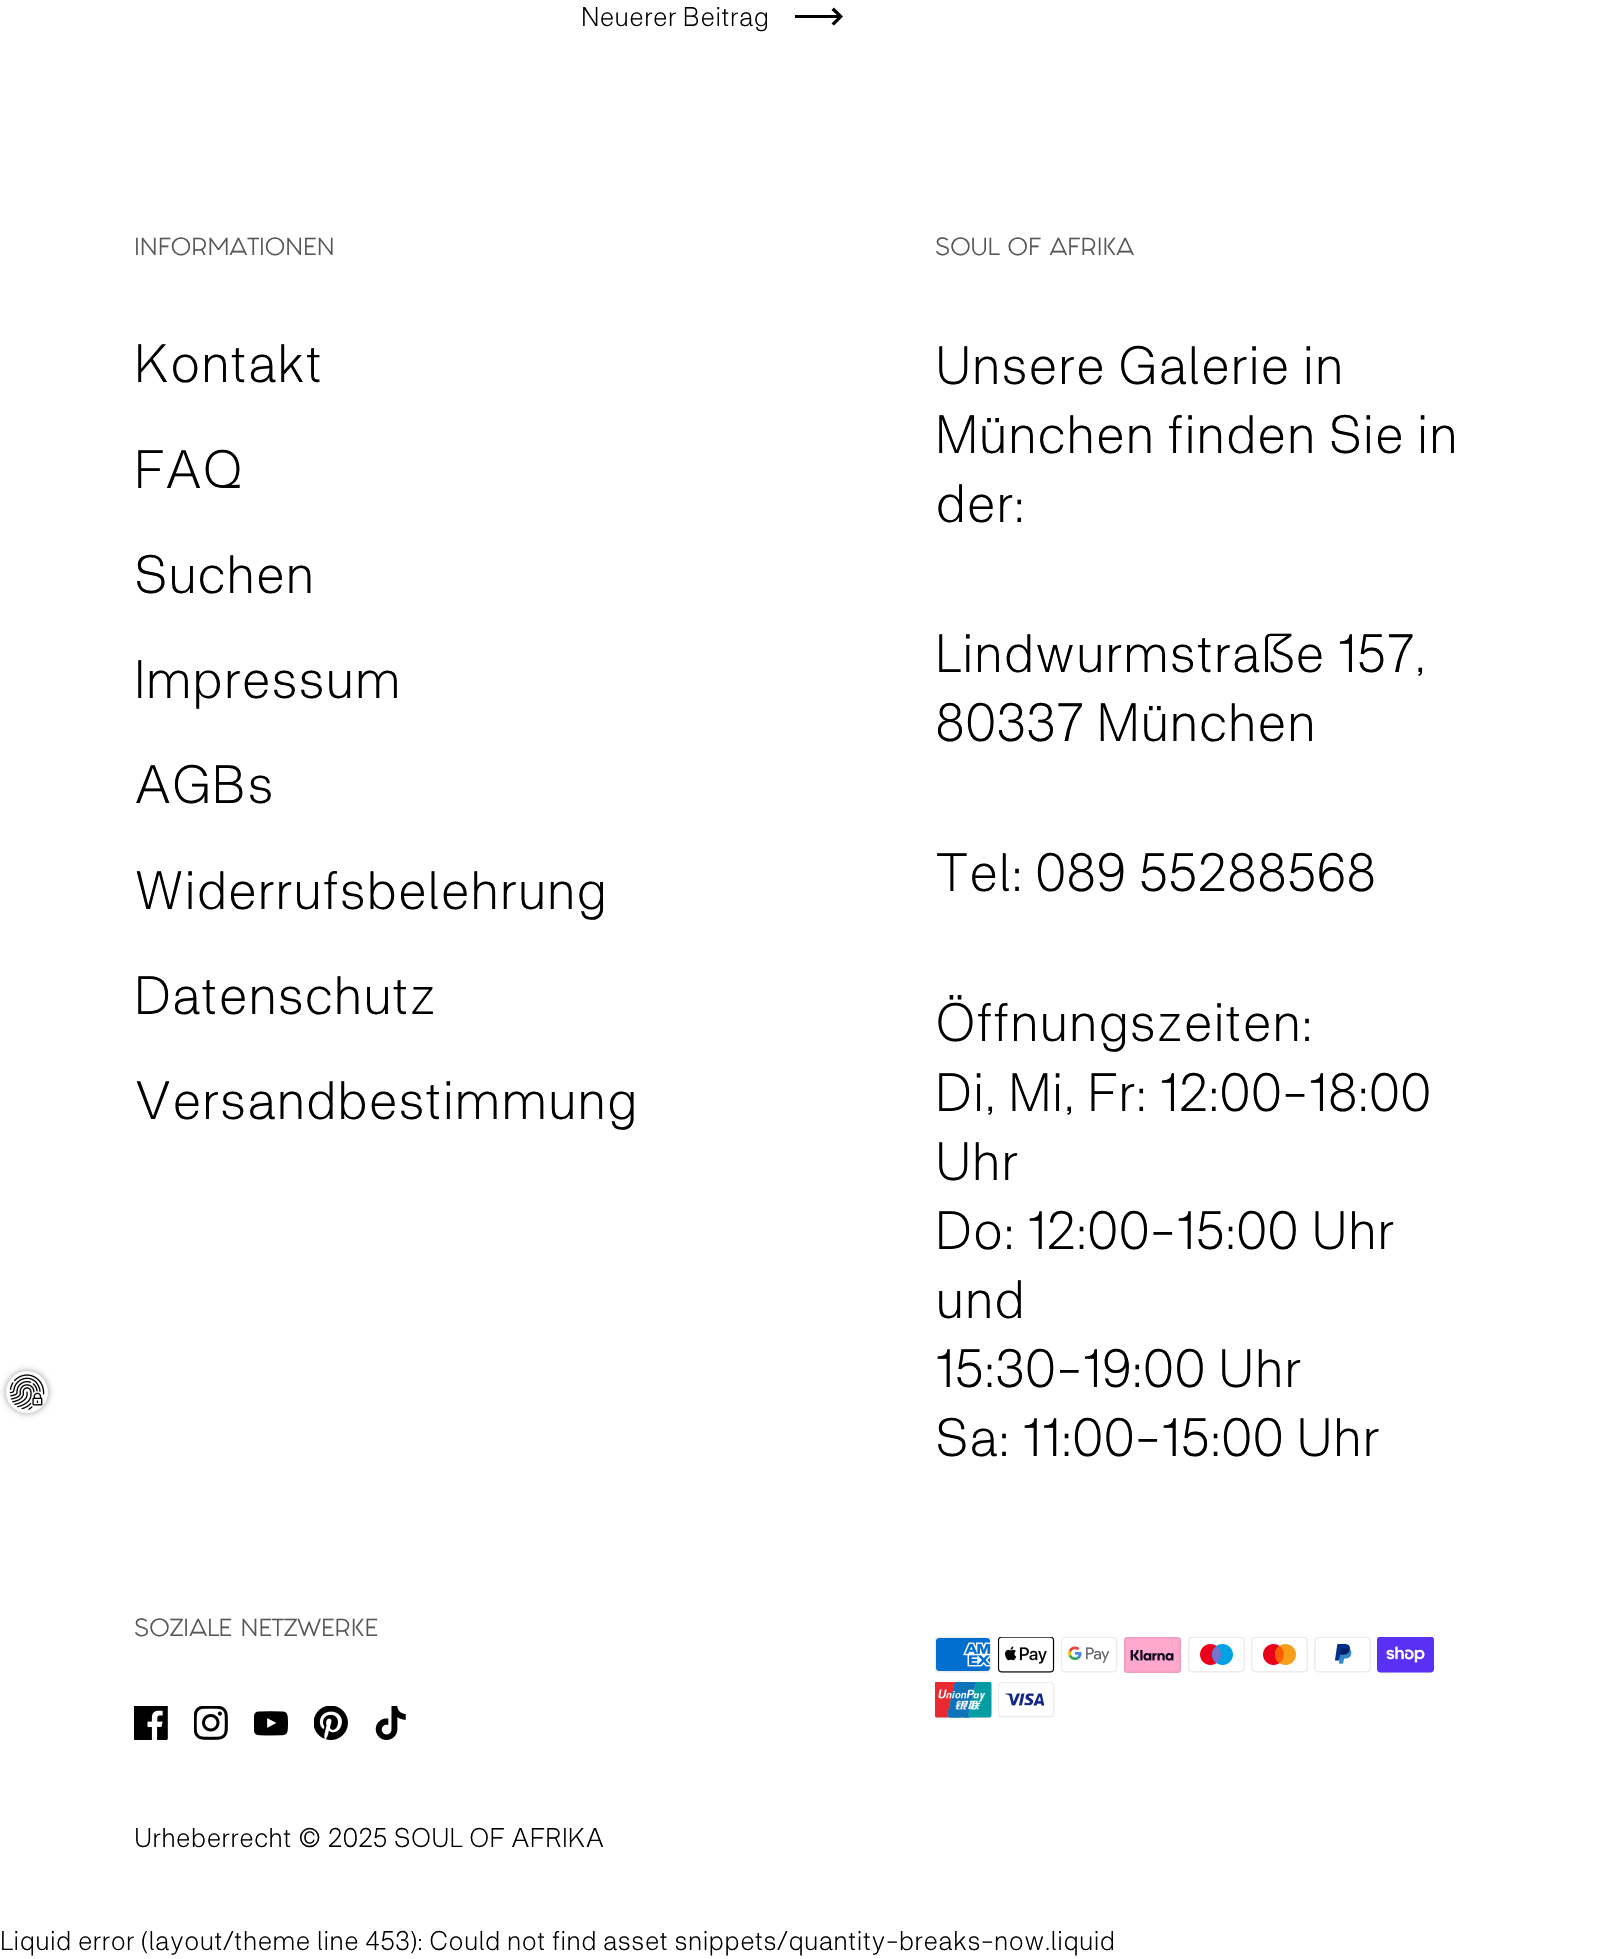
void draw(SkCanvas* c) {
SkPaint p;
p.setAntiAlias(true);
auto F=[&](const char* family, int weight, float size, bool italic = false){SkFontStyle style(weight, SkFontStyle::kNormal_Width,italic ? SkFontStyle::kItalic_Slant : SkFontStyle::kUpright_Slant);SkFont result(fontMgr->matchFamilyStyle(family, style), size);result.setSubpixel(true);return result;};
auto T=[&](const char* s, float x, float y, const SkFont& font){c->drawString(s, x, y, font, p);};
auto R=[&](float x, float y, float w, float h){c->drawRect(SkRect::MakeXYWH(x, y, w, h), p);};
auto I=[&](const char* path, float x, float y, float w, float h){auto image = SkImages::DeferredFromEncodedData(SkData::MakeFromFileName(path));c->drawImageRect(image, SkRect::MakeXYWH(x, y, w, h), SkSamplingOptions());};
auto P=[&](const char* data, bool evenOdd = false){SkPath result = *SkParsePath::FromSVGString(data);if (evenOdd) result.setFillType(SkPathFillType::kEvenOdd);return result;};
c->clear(0xffffffff);
auto f1 = F("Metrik",300,27);
p.setColor(0xff000000);
T("Neuerer Beitrag",581,26,f1);
R(795,15,46,3);
c->drawPath(P("M843 16.5l-9-9l-2.5 2.5l7 6.5l-7 7l2.5 2l6.5-6.5z"),p);
p.setColor(0x66000000);
p.setMaskFilter(SkMaskFilter::MakeBlur(kNormal_SkBlurStyle, 3));
c->drawRoundRect(SkRect::MakeXYWH(6,1371,42,42),21,21,p);
p.setMaskFilter(nullptr);
p.setColor(0xffffffff);
c->drawCircle(27,1392,21,p);
I("1.png",9,1374,36,36);
auto f2 = F("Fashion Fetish",400,21);
p.setColor(0xff575757);
T("INFORMATIONEN",134,255,f2);
auto f3 = F("Metrik",300,54);
p.setColor(0xff000000);
T("Kontakt",134,382,f3);
T("FAQ",134,488,f3);
T("Suchen",134,593,f3);
T("Impressum",134,698,f3);
T("AGBs",134,803,f3);
T("Widerrufsbelehrung",134,909,f3);
T("Datenschutz",134,1014,f3);
T("Versandbestimmung",134,1119,f3);
p.setColor(0xff575757);
T("SOUL OF AFRIKA",935,255,f2);
p.setColor(0xff000000);
T("Unsere Galerie in",935,384,f3);
T("München finden Sie in",935,453,f3);
T("der:",935,522,f3);
T("Lindwurmstraße 157,",935,672,f3);
T("80337 München",935,741,f3);
T("Tel: 089 55288568",935,891,f3);
T("Öffnungszeiten:",935,1041,f3);
T("Di, Mi, Fr: 12:00-18:00",935,1111,f3);
T("Uhr",935,1180,f3);
T("Do: 12:00-15:00 Uhr",935,1249,f3);
T("und",935,1318,f3);
T("15:30-19:00 Uhr",935,1387,f3);
T("Sa: 11:00-15:00 Uhr",935,1456,f3);
p.setColor(0xff575757);
T("SOZIALE NETZWERKE",134,1636,f2);
I("2.png",134,1706,34,34);
I("3.png",194,1706,34,34);
I("4.png",254,1711,34,25);
I("5.png",314,1706,34,34);
I("6.png",375,1706,31,34);
I("7.png",935,1637,57,36);
I("8.png",998,1637,57,36);
I("9.png",1061,1637,57,36);
I("10.png",1124,1637,57,36);
I("11.png",1188,1637,57,36);
I("12.png",1251,1637,57,36);
I("13.png",1314,1637,57,36);
I("14.png",1377,1637,57,36);
I("15.png",935,1682,57,36);
I("16.png",998,1682,57,36);
p.setColor(0xff000000);
T("Urheberrecht © 2025 SOUL OF AFRIKA",134,1847,f1);
T("Liquid error (layout/theme line 453): Could not find asset snippets/quantity-breaks-now.liquid",0,1950,f1);
}
